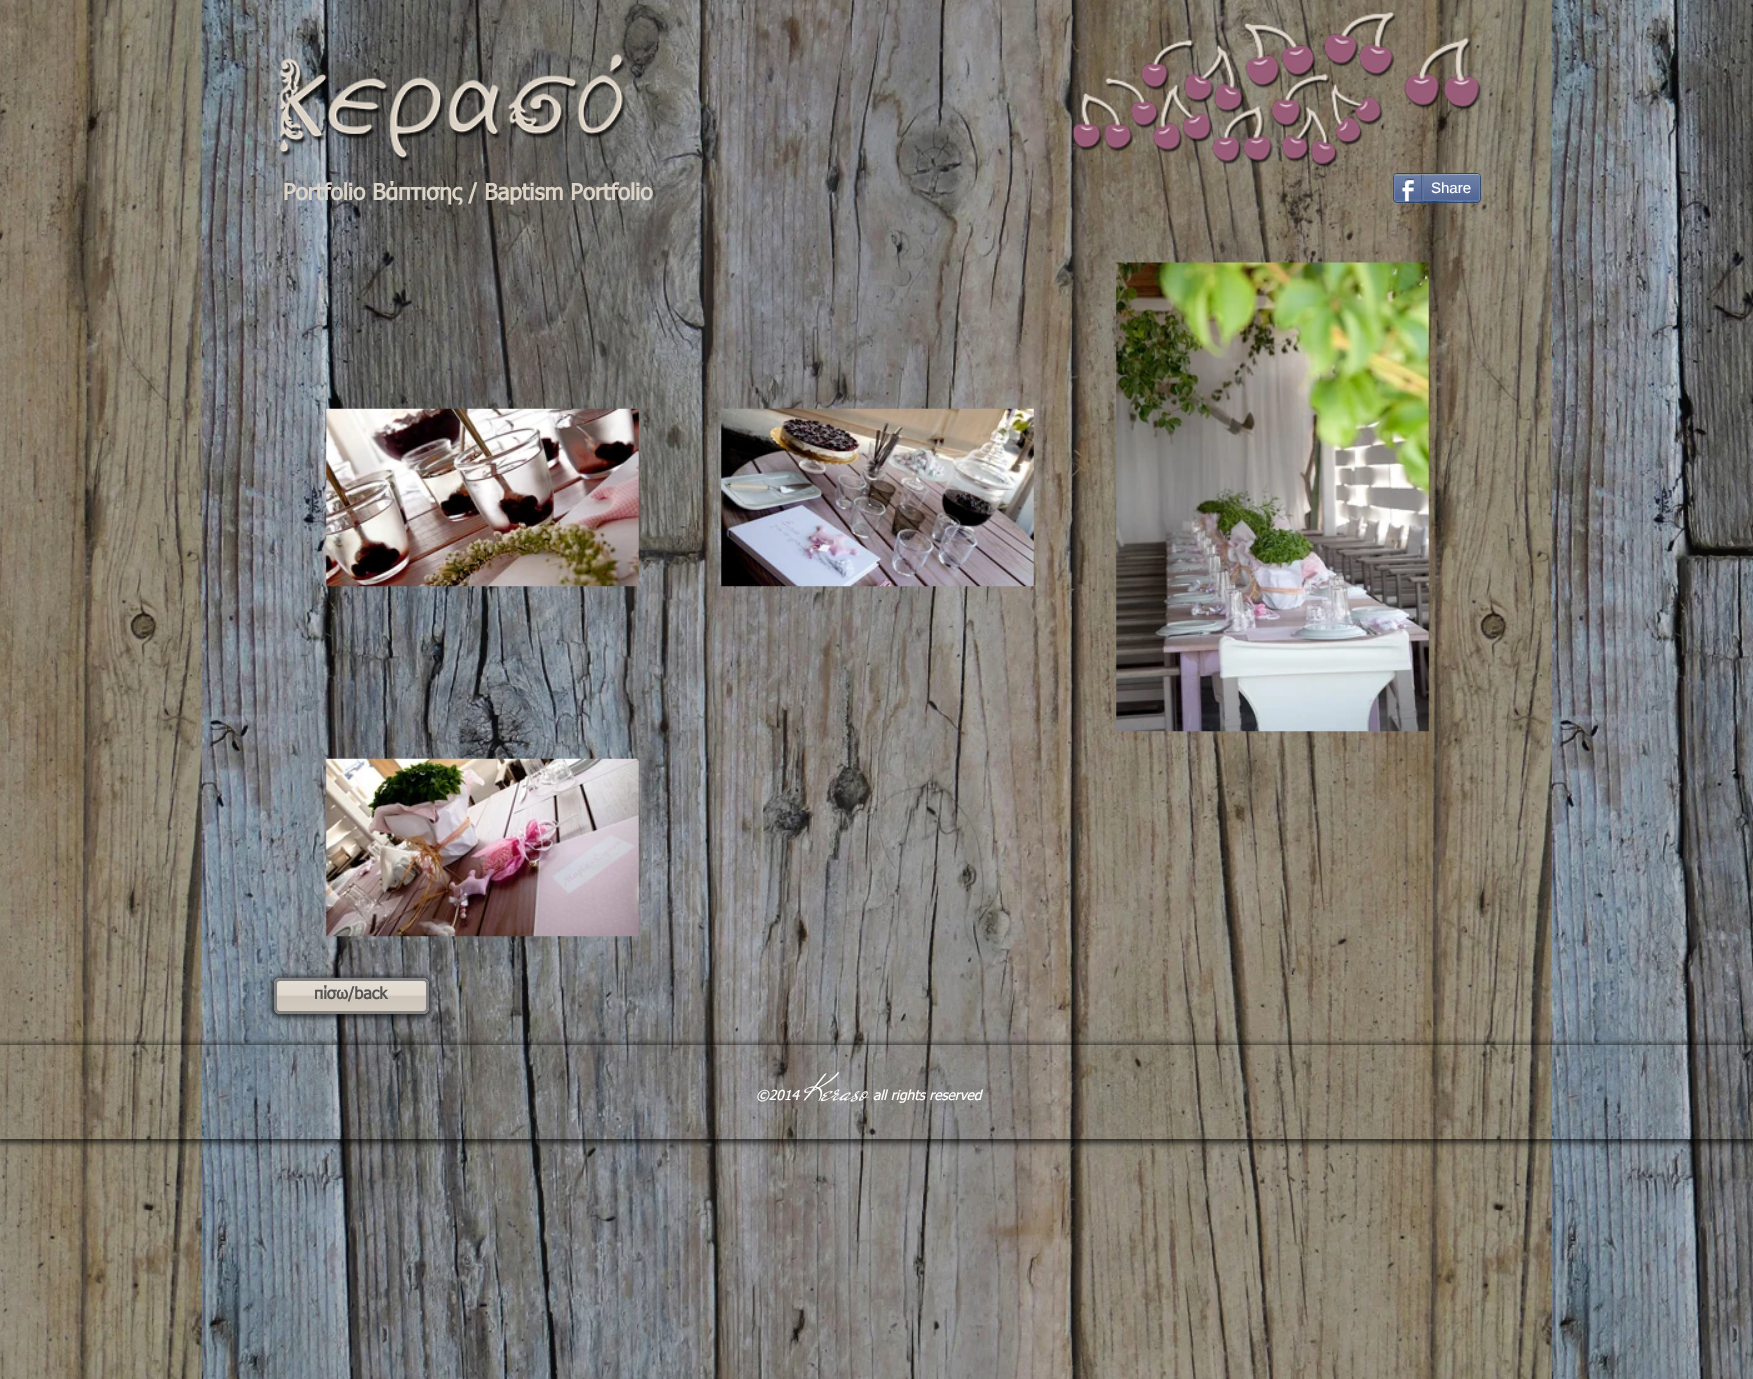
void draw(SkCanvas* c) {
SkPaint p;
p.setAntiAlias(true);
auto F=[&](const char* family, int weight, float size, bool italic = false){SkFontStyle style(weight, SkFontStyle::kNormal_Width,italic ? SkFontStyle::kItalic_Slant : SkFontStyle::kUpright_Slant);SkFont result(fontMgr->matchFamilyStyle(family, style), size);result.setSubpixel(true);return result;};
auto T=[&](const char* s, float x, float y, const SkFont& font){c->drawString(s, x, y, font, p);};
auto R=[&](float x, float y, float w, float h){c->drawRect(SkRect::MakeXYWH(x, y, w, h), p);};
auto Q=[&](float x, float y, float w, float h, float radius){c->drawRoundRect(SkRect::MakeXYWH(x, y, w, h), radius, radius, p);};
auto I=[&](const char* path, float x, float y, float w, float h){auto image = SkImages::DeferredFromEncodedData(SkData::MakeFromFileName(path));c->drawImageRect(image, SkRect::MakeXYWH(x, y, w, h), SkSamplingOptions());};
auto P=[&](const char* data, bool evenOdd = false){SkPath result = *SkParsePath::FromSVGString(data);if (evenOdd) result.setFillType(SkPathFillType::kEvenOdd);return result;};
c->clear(0xffffffff);
I("1.png",0,0,1753,1379);
auto f1 = F("tahoma",700,22.5);
p.setColor(0xffddd4c8);
T("Portfolio Bάπτισης / Baptism Portfolio",283,200,f1);
I("2.png",326,408,313,179);
I("3.png",721,408,313,179);
I("4.png",1116,262,313,470);
I("5.png",326,758,313,179);
p.setColor(0x99000000);
p.setMaskFilter(SkMaskFilter::MakeBlur(kNormal_SkBlurStyle, 2.5));
c->drawRoundRect(SkRect::MakeXYWH(271,976,160,42),9,9,p);
p.setMaskFilter(nullptr);
p.setColor(0xffddd4c8);
Q(274,978,155,36,6);
I("6.png",274,977,155,36);
p.setStroke(true);
p.setStrokeWidth(3);
p.setColor(0xff808080);
c->drawRoundRect(SkRect::MakeXYWH(275.5,979.5,152,33),4.5,4.5,p);
auto f2 = F("tahoma",700,16.25);
p.setStroke(false);
p.setColor(0xff555555);
T("πίσω/back",314,999,f2);
I("7.png",280,53,346,110);
I("8.png",1072,11,410,157);
p.setStroke(true);
p.setStrokeWidth(1);
p.setColor(0xff2d4565);
c->drawRoundRect(SkRect::MakeXYWH(1393.5,173.5,87,29),3.5,3.5,p);
I("9.png",1393,175,87,27);
p.setStrokeWidth(1.2);
p.setColor(0xff9aabc6);
c->drawPath(P("M1395 175l69-.5h13.5l1.5 .5"),p);
p.setColor(0xff6f83ad);
c->drawPath(P("M1479 175l.5 1v23l-.5 1"),p);
p.setColor(0xff6176a3);
c->drawPath(P("M1479 200l-1.5 .5l-82.5-.5"),p);
p.setColor(0xff6f83ad);
c->drawPath(P("M1395 200l-.5-1v-23l.5-1"),p);
I("10.png",1401,178,13,24);
p.setStroke(false);
p.setColor(0xff425e85);
R(1421,175,1,26);
auto f3 = F("Liberation Sans",400,15);
p.setColor(0xffffffff);
T("Share",1431,193,f3);
p.setColor(0xff6176a3);
R(1423,175,1,25);
c->save();
c->clipPath(P("M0 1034h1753v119h-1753zm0 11h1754v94h-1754z",true),true);
p.setColor(0xb3000000);
p.setMaskFilter(SkMaskFilter::MakeBlur(kNormal_SkBlurStyle, 3));
c->drawRect(SkRect::MakeXYWH(-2,1044,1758,99),p);
p.setMaskFilter(nullptr);
c->restore();
I("11.png",0,1045,1753,94);
auto f4 = F("tahoma",400,13.75,true);
p.setColor(0xffffffff);
T("©2014",756,1100,f4);
auto f5 = F("Mr De Haviland",400,38,true);
T("Keraso",802,1100,f5);
T("all rights reserved",873,1100,f4);
}
